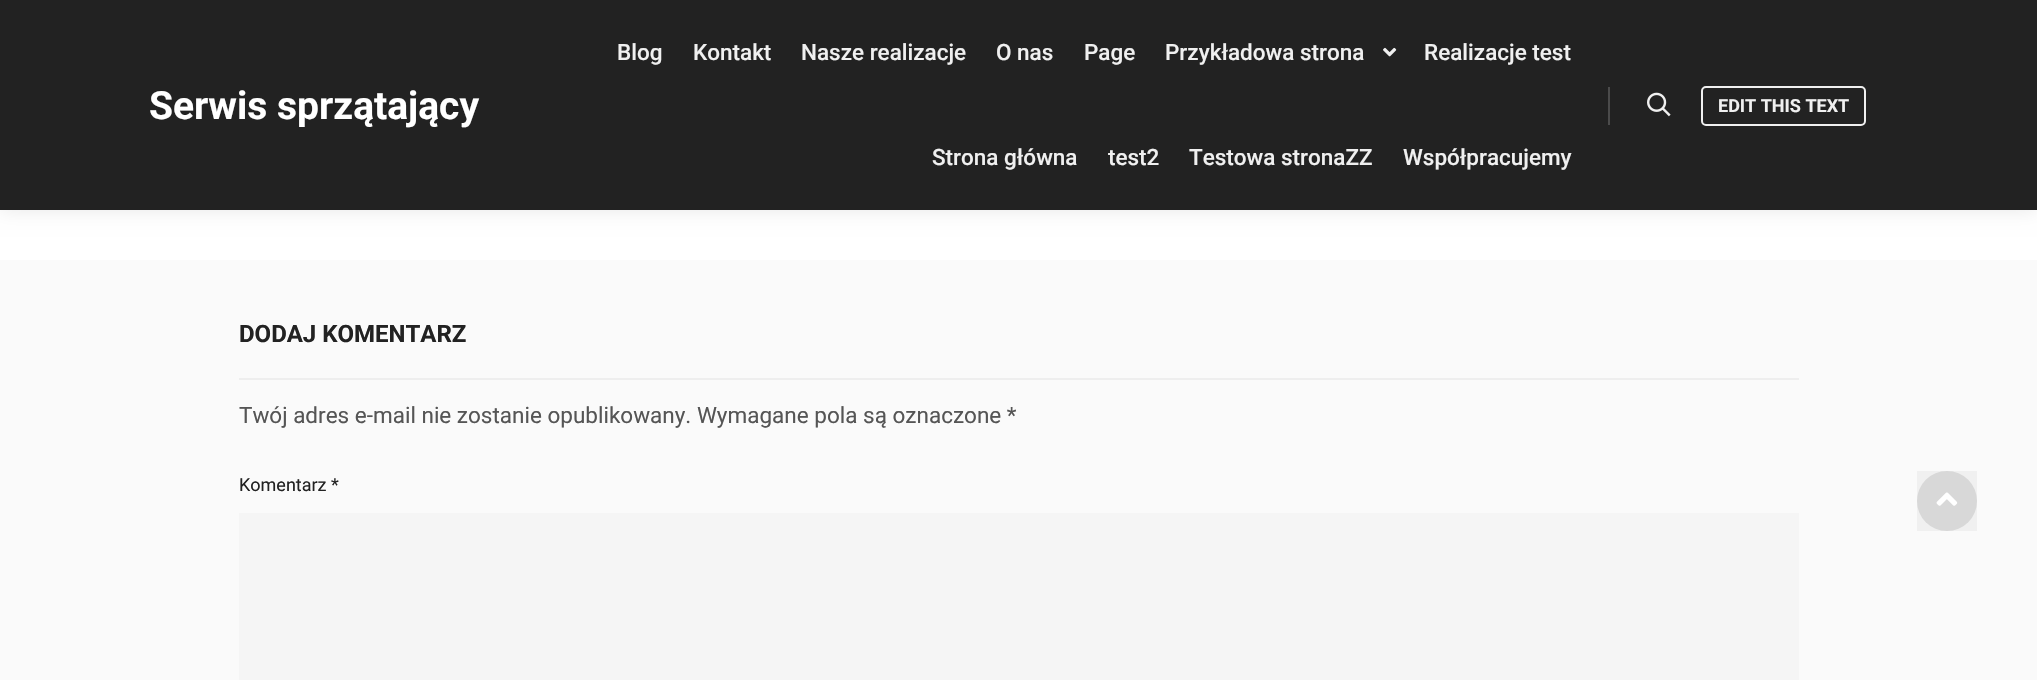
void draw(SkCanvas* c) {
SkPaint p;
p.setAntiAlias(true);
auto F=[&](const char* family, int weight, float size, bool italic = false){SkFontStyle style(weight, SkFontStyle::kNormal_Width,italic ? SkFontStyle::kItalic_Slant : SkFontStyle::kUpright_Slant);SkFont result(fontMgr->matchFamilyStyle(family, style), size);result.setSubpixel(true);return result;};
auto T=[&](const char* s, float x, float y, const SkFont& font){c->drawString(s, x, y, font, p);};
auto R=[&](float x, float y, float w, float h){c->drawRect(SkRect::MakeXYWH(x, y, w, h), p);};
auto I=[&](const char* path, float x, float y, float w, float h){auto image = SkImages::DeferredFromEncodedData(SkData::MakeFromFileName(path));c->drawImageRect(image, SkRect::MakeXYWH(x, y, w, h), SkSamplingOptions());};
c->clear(0xffffffff);
p.setColor(0x17000000);
p.setMaskFilter(SkMaskFilter::MakeBlur(kNormal_SkBlurStyle, 9));
c->drawRect(SkRect::MakeXYWH(0,0,2037,210),p);
p.setMaskFilter(nullptr);
p.setColor(0xff222222);
R(0,0,2037,210);
auto f1 = F("Roboto",700,39);
p.setColor(0xffffffff);
T("Serwis sprzątający",149,119,f1);
auto f2 = F("Roboto",500,22.5);
p.setColor(0xfff0f0f0);
T("Blog",617,60,f2);
T("Kontakt",693,60,f2);
T("Nasze realizacje",801,60,f2);
T("O nas",996,60,f2);
T("Page",1084,60,f2);
T("Przykładowa strona",1165,60,f2);
I("1.png",1383,47,14,10);
T("Realizacje test",1424,60,f2);
T("Strona główna",932,165,f2);
T("test2",1108,165,f2);
T("Testowa stronaZZ",1189,165,f2);
T("Współpracujemy",1403,165,f2);
p.setColor(0xff4b4b4b);
R(1608,87,2,38);
I("2.png",1647,92,24,25);
p.setStroke(true);
p.setStrokeWidth(2);
p.setColor(0xfff0f0f0);
c->drawRoundRect(SkRect::MakeXYWH(1702,87,163,38),4,4,p);
auto f3 = F("Roboto",700,18);
p.setStroke(false);
T("EDIT THIS TEXT",1718,112,f3);
p.setColor(0xfffafafa);
R(0,260,2037,420);
p.setColor(0xffeeeeee);
R(239,378,1560,2);
auto f4 = F("Roboto",700,24);
p.setColor(0xff222222);
T("DODAJ KOMENTARZ",239,342,f4);
auto f5 = F("Roboto",400,22.5);
p.setColor(0xff555555);
T("Twój adres e-mail nie zostanie opublikowany. Wymagane pola są oznaczone *",239,423,f5);
auto f6 = F("Roboto",400,18);
p.setColor(0xff222222);
T("Komentarz *",239,491,f6);
p.setColor(0xfff5f5f5);
R(239,513,1560,167);
p.setColor(0xffe1e1e1);
c->drawCircle(1947,501,30,p);
p.setColor(0x0a000000);
R(1917,471,60,60);
I("3.png",1936,492,22,14);
}
